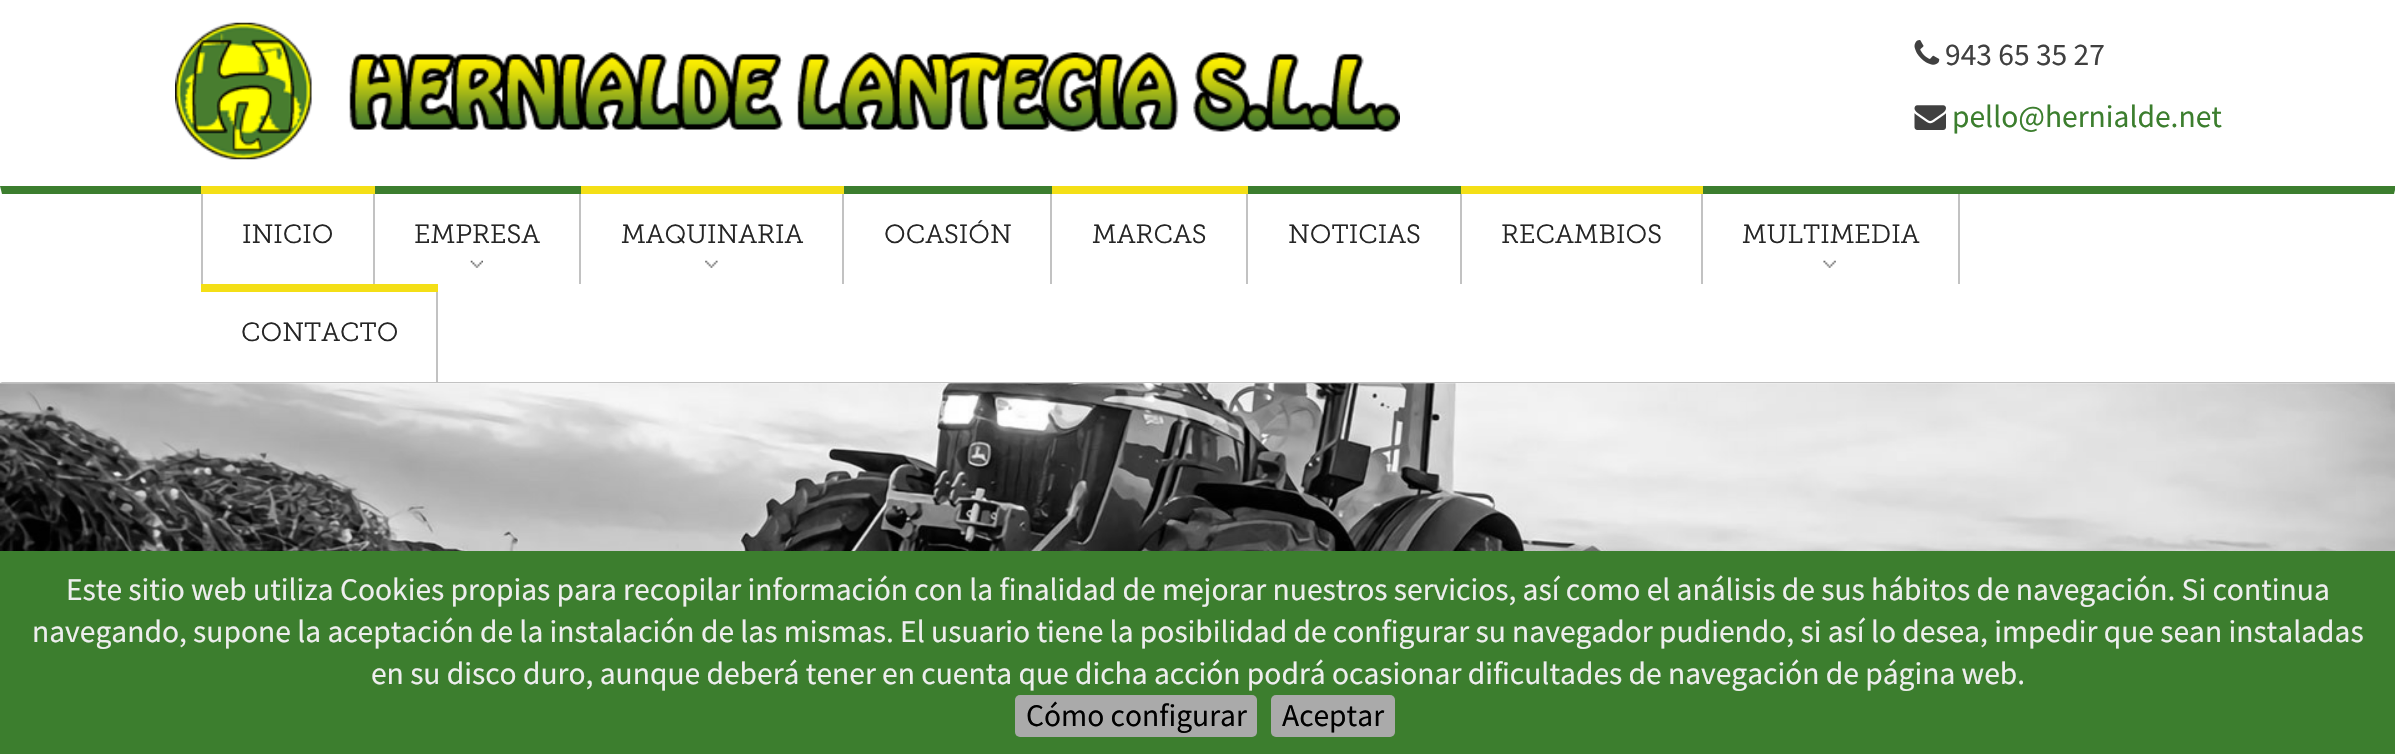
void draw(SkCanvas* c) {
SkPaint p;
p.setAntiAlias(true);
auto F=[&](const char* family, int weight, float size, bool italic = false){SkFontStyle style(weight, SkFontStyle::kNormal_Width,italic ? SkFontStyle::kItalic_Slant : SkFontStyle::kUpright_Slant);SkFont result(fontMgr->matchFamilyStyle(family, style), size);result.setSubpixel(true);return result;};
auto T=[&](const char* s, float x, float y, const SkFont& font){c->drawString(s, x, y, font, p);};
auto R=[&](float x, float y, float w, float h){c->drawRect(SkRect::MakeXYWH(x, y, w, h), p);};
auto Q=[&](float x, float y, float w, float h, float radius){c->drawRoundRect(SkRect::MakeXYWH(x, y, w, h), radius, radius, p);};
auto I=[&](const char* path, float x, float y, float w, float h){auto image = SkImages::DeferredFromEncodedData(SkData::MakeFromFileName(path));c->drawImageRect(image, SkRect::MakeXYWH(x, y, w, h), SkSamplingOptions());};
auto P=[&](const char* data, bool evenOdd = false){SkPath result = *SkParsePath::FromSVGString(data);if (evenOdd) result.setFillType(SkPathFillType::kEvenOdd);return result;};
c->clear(0xffffffff);
I("1.png",175,22,1225,138);
I("2.png",1914,40,26,25);
auto f1 = F("Source Sans Pro",400,31.5);
p.setColor(0xff404040);
T("943 65 35 27",1945,65,f1);
I("3.png",1914,105,32,25);
p.setColor(0xff3c7e2e);
T("pello@hernialde.net",1952,127,f1);
c->drawPath(P("M0 186h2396l-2 8h-2392z"),p);
p.setColor(0xffc2c2c2);
c->drawPath(P("M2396 383h-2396l2-1h2392z"),p);
p.setColor(0xfff4df16);
R(201,186,174,8);
p.setColor(0xffc2c2c2);
R(373,194,2,90);
R(201,194,2,90);
auto f2 = F("Museo Slab",400,26.25);
p.setColor(0xff252525);
T("INICIO",242,243,f2);
p.setColor(0xffc2c2c2);
R(579,194,2,90);
p.setColor(0xff252525);
T("EMPRESA",414,243,f2);
I("4.png",470,260,13,8);
p.setColor(0xfff4df16);
R(581,186,263,8);
p.setColor(0xffc2c2c2);
R(842,194,2,90);
p.setColor(0xff252525);
T("MAQUINARIA",621,243,f2);
I("5.png",705,260,13,8);
p.setColor(0xffc2c2c2);
R(1050,194,2,90);
p.setColor(0xff252525);
T("OCASIÓN",884,243,f2);
p.setColor(0xfff4df16);
R(1052,186,196,8);
p.setColor(0xffc2c2c2);
R(1246,194,2,90);
p.setColor(0xff252525);
T("MARCAS",1092,243,f2);
p.setColor(0xffc2c2c2);
R(1460,194,2,90);
p.setColor(0xff252525);
T("NOTICIAS",1288,243,f2);
p.setColor(0xfff4df16);
R(1461,186,242,8);
p.setColor(0xffc2c2c2);
R(1701,194,2,90);
p.setColor(0xff252525);
T("RECAMBIOS",1501,243,f2);
p.setColor(0xffc2c2c2);
R(1958,194,2,90);
p.setColor(0xff252525);
T("MULTIMEDIA",1742,243,f2);
I("6.png",1823,260,13,8);
p.setColor(0xfff4df16);
R(201,284,237,8);
p.setColor(0xffc2c2c2);
R(436,292,2,90);
p.setColor(0xff252525);
T("CONTACTO",241,341,f2);
I("7.png",0,383,2395,168);
p.setColor(0xff3c7e2e);
R(0,551,2395,203);
p.setColor(0xffeeeeee);
T("Este sitio web utiliza Cookies propias para recopilar información con la finalidad de mejorar nuestros servicios, así como el análisis de sus hábitos de navegación. Si continua",66,600,f1);
T("navegando, supone la aceptación de la instalación de las mismas. El usuario tiene la posibilidad de configurar su navegador pudiendo, si así lo desea, impedir que sean instaladas",32,642,f1);
T("en su disco duro, aunque deberá tener en cuenta que dicha acción podrá ocasionar dificultades de navegación de página web.",371,684,f1);
p.setColor(0xffaaaaaa);
Q(1015,695,242,42,5);
p.setColor(0xff000000);
T("Cómo configurar",1026,726,f1);
p.setColor(0xffaaaaaa);
Q(1271,695,124,42,5);
p.setColor(0xff000000);
T("Aceptar",1282,726,f1);
}
